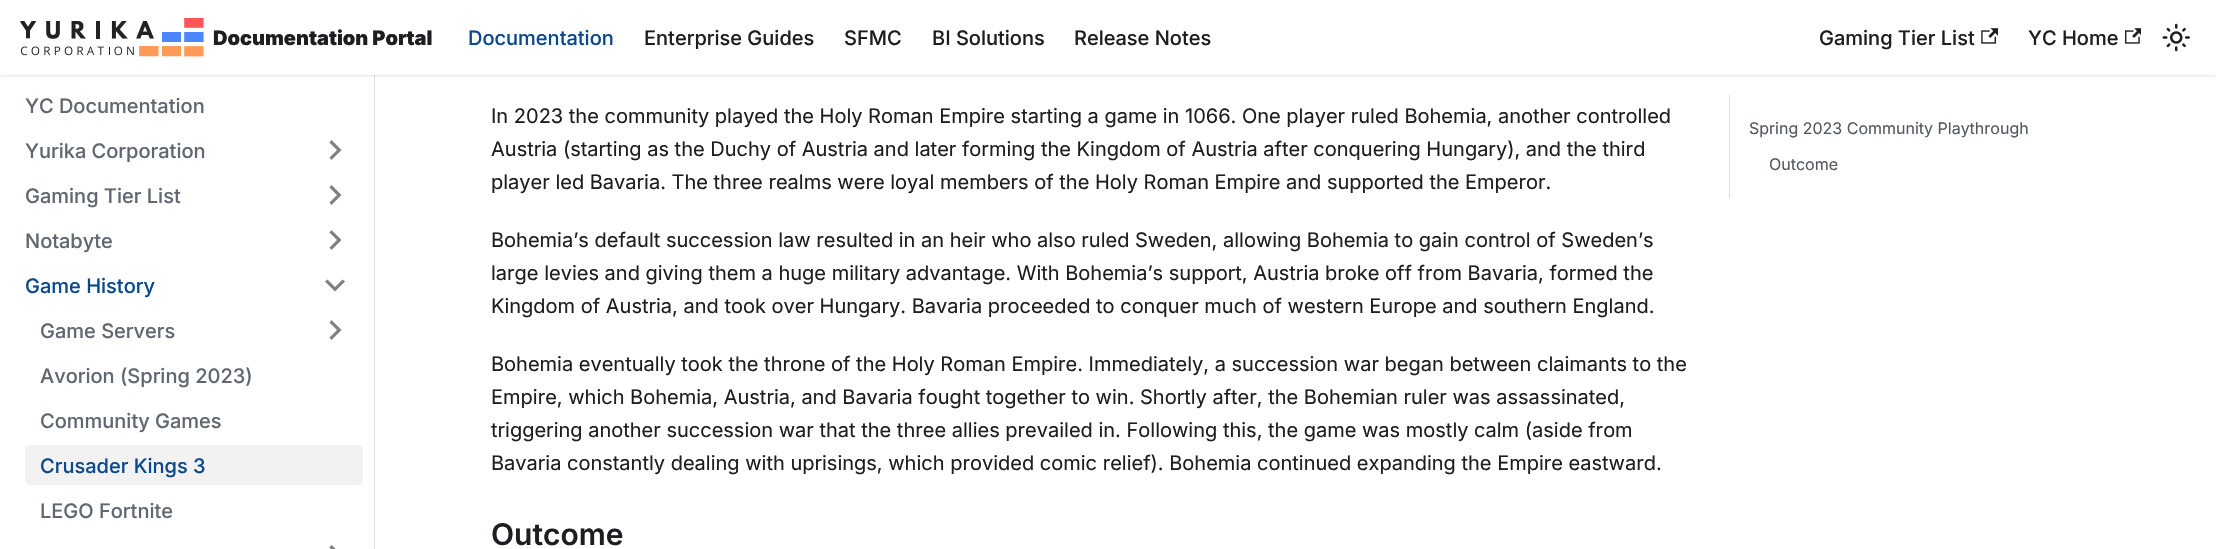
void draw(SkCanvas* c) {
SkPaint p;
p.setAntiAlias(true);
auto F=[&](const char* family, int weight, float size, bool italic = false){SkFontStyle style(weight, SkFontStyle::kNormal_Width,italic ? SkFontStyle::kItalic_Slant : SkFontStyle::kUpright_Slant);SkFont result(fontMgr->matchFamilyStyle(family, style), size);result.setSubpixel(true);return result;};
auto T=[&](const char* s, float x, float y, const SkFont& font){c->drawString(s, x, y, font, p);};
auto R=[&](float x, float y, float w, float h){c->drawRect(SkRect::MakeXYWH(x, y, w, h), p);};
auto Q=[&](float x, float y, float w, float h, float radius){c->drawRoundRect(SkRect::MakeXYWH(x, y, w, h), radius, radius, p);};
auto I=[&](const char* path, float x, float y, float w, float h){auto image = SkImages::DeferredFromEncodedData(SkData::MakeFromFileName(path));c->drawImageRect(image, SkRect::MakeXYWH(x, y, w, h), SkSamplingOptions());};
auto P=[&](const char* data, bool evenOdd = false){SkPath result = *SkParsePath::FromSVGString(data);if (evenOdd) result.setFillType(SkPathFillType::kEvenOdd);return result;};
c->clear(0xffffffff);
p.setColor(0xffdadde1);
R(374,75,1,474);
p.setColor(0x1a000000);
p.setMaskFilter(SkMaskFilter::MakeBlur(kNormal_SkBlurStyle, 1));
c->drawRect(SkRect::MakeXYWH(0,1,2216,75),p);
p.setMaskFilter(nullptr);
p.setColor(0xffffffff);
R(0,0,2216,75);
I("1.png",20,18,184,39);
auto f1 = F("Inter",900,20);
p.setColor(0xff1c1e21);
T("Documentation Portal",213,45,f1);
auto f2 = F("Inter",500,20);
p.setColor(0xff0a498d);
T("Documentation",468,45,f2);
p.setColor(0xff1c1e21);
T("Enterprise Guides",644,45,f2);
T("SFMC",844,45,f2);
T("BI Solutions",932,45,f2);
T("Release Notes",1074,45,f2);
T("Gaming Tier List",1819,45,f2);
I("2.png",1981,28,17,16);
T("YC Home",2028,45,f2);
I("3.png",2125,28,16,16);
I("4.png",2162,23,28,29);
p.setColor(0xff606770);
T("YC Documentation",25,113,f2);
T("Yurika Corporation",25,158,f2);
p.setColor(0xff808080);
c->drawPath(P("M329.5 142.5l7.5 7.5l-7.5 7.5l2 2.5l10-10l-10-10z"),p);
p.setColor(0xff606770);
T("Gaming Tier List",25,203,f2);
p.setColor(0xff808080);
c->drawPath(P("M329.5 187.5l7.5 7.5l-7.5 7.5l2 2.5l10-10l-10-10z"),p);
p.setColor(0xff606770);
T("Notabyte",25,248,f2);
p.setColor(0xff808080);
c->drawPath(P("M329.5 232.5l7.5 7.5l-7.5 7.5l2 2.5l10-10l-10-10z"),p);
p.setColor(0xff0a498d);
T("Game History",25,293,f2);
p.setColor(0xff808080);
c->drawPath(P("M342.5 279.5l-7.5 7.5l-7.5-7.5l-2.5 2l10 10l10-10z"),p);
p.setColor(0xff606770);
T("Game Servers",40,338,f2);
p.setColor(0xff808080);
c->drawPath(P("M329.5 322.5l7.5 7.5l-7.5 7.5l2 2.5l10-10l-10-10z"),p);
p.setColor(0xff606770);
T("Avorion (Spring 2023)",40,383,f2);
T("Community Games",40,428,f2);
p.setColor(0xfff2f2f2);
Q(25,445,338,40,5);
p.setColor(0xff0a498d);
T("Crusader Kings 3",40,473,f2);
p.setColor(0xff606770);
T("LEGO Fortnite",40,518,f2);
I("5.png",329,545,7,4);
auto f3 = F("Inter",400,20);
p.setColor(0xff1c1e21);
T("In 2023 the community played the Holy Roman Empire starting a game in 1066. One player ruled Bohemia, another controlled",491,123,f3);
T("Austria (starting as the Duchy of Austria and later forming the Kingdom of Austria after conquering Hungary), and the third",491,156,f3);
T("player led Bavaria. The three realms were loyal members of the Holy Roman Empire and supported the Emperor.",491,189,f3);
T("Bohemia’s default succession law resulted in an heir who also ruled Sweden, allowing Bohemia to gain control of Sweden’s",491,247,f3);
T("large levies and giving them a huge military advantage. With Bohemia’s support, Austria broke off from Bavaria, formed the",491,280,f3);
T("Kingdom of Austria, and took over Hungary. Bavaria proceeded to conquer much of western Europe and southern England.",491,313,f3);
T("Bohemia eventually took the throne of the Holy Roman Empire. Immediately, a succession war began between claimants to the",491,371,f3);
T("Empire, which Bohemia, Austria, and Bavaria fought together to win. Shortly after, the Bohemian ruler was assassinated,",491,404,f3);
T("triggering another succession war that the three allies prevailed in. Following this, the game was mostly calm (aside from",491,437,f3);
T("Bavaria constantly dealing with uprisings, which provided comic relief). Bohemia continued expanding the Empire eastward.",491,470,f3);
auto f4 = F("Inter",600,30);
T("Outcome",491,545,f4);
p.setColor(0xffdadde1);
R(1729,95,1,103);
auto f5 = F("Inter",400,16);
p.setColor(0xff525860);
T("Spring 2023 Community Playthrough",1749,134,f5);
T("Outcome",1769,170,f5);
}
